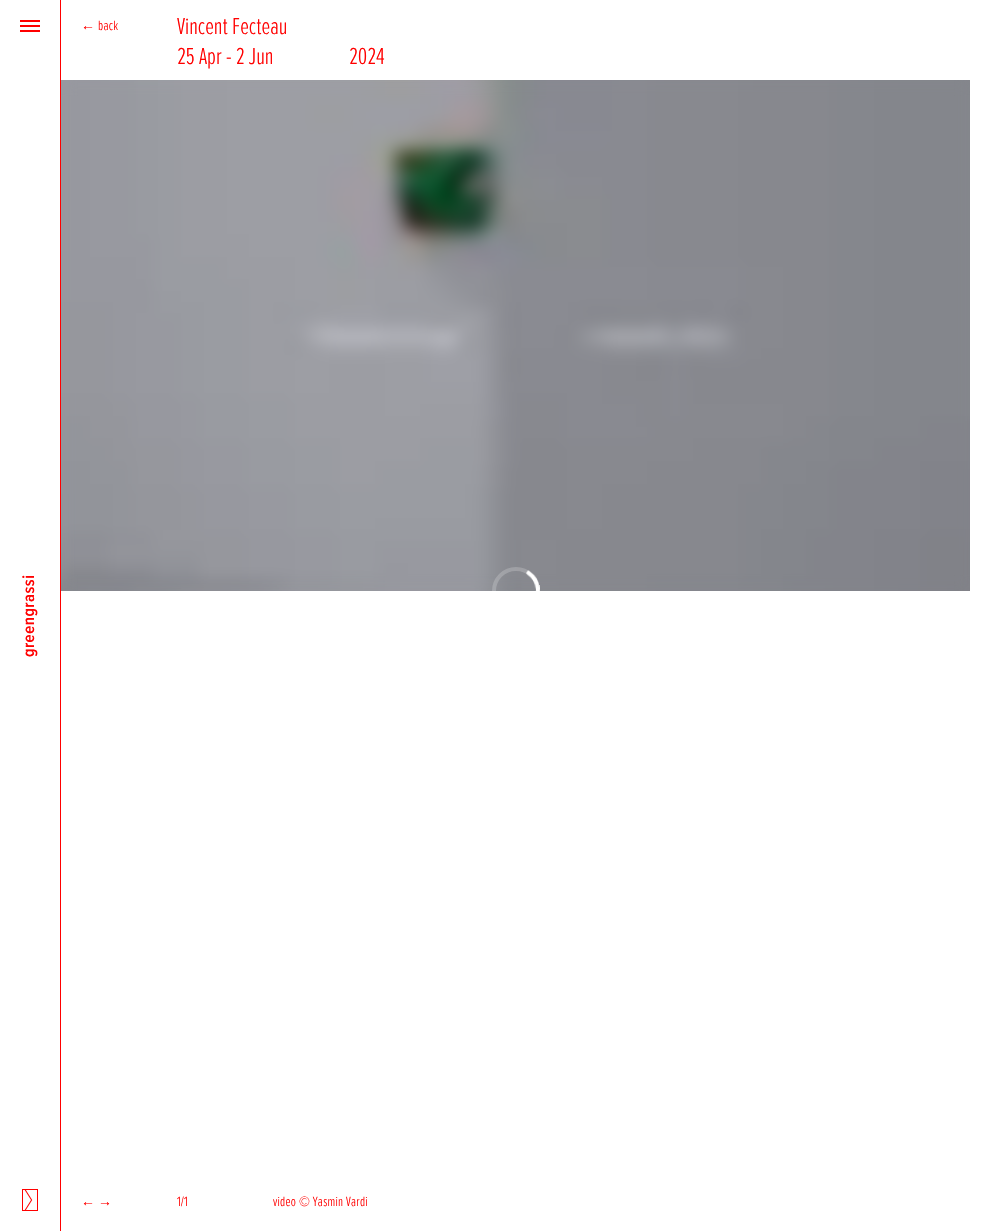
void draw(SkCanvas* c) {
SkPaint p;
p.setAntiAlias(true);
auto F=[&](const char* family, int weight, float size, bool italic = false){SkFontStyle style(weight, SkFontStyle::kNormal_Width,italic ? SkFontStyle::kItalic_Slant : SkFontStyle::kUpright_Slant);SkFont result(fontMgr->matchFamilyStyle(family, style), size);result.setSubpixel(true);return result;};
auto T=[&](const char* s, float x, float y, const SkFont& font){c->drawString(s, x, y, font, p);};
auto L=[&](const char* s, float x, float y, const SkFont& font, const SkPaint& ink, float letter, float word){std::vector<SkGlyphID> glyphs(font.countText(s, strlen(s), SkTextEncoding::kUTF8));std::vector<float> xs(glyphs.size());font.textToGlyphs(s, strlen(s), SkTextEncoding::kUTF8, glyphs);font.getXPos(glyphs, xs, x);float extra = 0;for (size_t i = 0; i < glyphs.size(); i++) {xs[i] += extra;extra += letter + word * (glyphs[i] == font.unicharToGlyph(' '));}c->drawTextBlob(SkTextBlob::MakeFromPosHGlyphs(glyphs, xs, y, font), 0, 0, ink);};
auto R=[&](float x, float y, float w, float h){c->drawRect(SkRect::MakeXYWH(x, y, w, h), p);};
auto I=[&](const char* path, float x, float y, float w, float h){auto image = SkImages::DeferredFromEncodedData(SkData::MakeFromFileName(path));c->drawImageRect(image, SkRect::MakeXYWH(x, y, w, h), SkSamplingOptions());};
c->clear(0xffffffff);
p.setColor(0xffff0000);
R(60,0,1,1231);
R(20,25,20,2);
R(20,20,20,2);
R(20,30,20,2);
auto f1 = F("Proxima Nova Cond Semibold",600,17);
c->save();
c->rotate(-90,34,657);
L("greengrassi",34,657,f1,p,.5,0);
c->restore();
I("1.png",22,1189,16,22);
auto f2 = F("Liberation Sans",400,14);
L("←",81,30,f2,p,.25,0);
auto f3 = F("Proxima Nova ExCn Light",300,14);
L("back",98,30,f3,p,.25,0);
auto f4 = F("Proxima Nova ExCn Light",300,24);
T("Vincent Fecteau",177,34,f4);
T("25 Apr - 2 Jun",177,64,f4);
T("2024",349,64,f4);
I("2.png",61,80,909,511);
L("←",81,1206,f2,p,.25,0);
L("→",98,1206,f2,p,.25,0);
L("1/1",177,1206,f3,p,.25,0);
L("video © Yasmin Vardi",273,1206,f3,p,.25,0);
}
